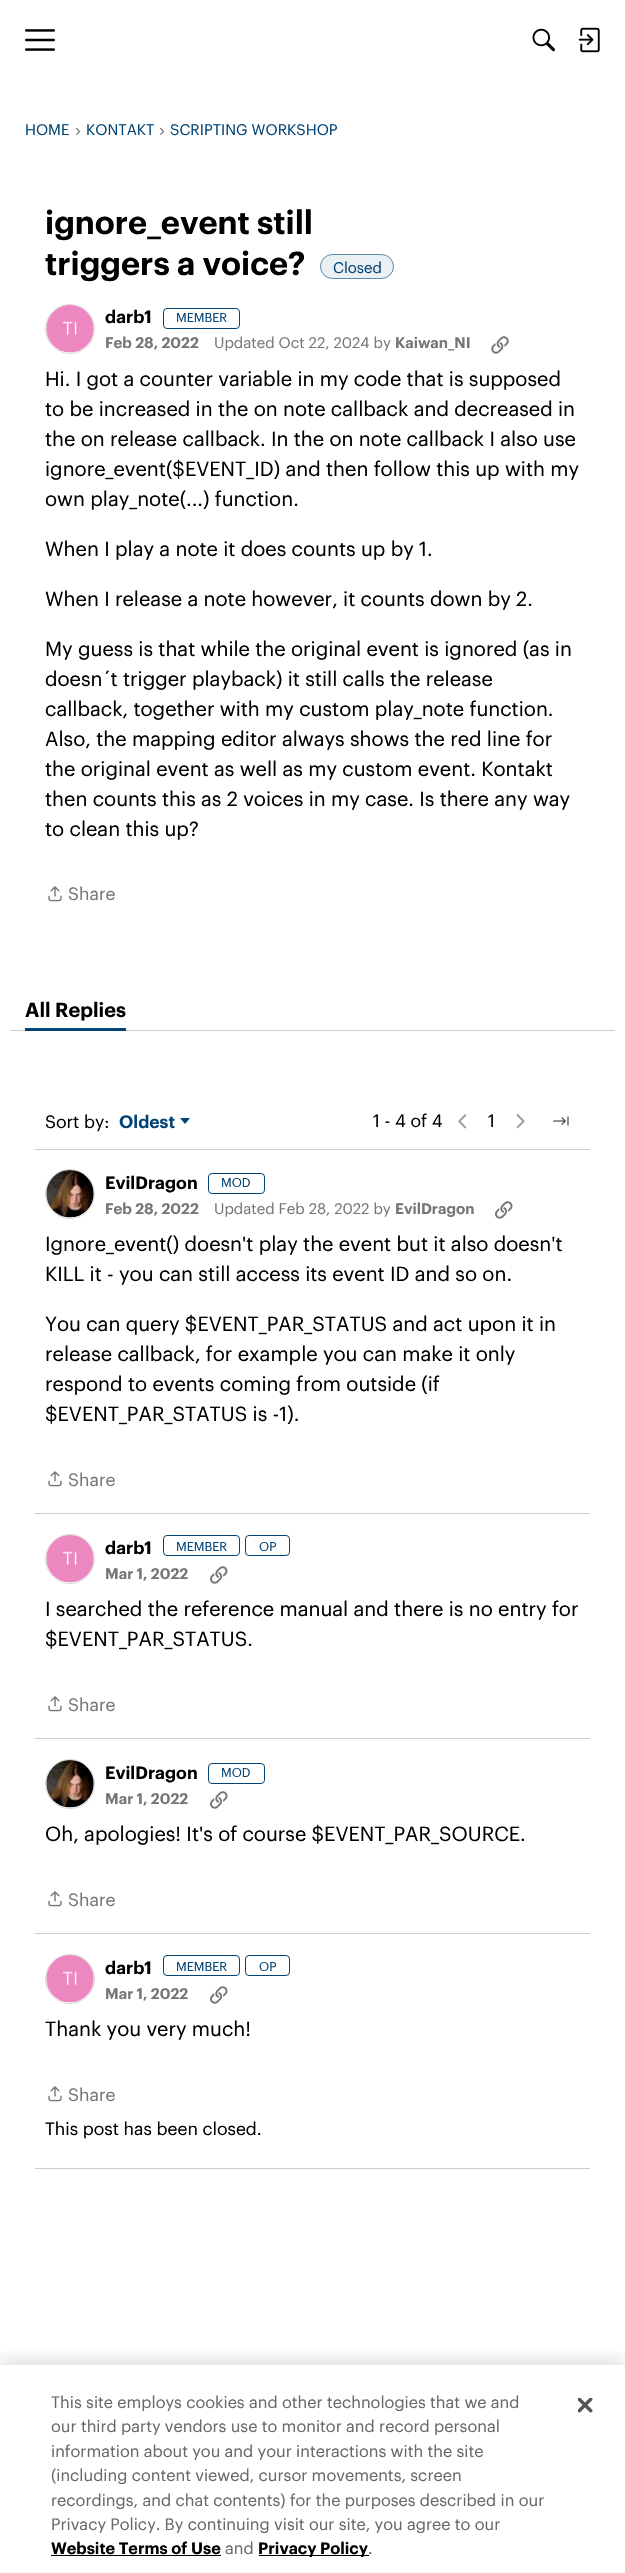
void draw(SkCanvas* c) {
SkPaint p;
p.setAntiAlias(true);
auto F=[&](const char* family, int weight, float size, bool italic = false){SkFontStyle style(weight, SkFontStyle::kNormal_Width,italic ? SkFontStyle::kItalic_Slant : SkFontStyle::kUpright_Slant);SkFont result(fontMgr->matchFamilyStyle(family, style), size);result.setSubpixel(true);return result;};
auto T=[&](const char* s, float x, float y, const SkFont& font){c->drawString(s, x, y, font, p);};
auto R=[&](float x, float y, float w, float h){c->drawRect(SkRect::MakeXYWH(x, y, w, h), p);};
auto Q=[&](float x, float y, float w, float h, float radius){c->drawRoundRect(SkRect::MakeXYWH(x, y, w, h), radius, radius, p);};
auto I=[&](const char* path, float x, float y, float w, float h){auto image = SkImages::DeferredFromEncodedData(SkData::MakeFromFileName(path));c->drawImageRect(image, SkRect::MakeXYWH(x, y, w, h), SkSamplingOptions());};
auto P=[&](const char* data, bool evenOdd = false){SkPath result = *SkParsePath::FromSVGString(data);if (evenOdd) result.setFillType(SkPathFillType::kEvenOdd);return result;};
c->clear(0xffffffff);
I("1.png",25,29,30,22);
I("2.png",532,28,23,24);
I("3.png",578,27,22,26);
auto f1 = F("Graphik",400,15);
p.setColor(0xff024475);
T("HOME",25,135,f1);
auto f2 = F("Liberation Sans",400,17.5);
p.setColor(0xff808080);
T("›",75,136,f2);
p.setColor(0xff024475);
T("KONTAKT",86,135,f1);
p.setColor(0xff808080);
T("›",159,136,f2);
p.setColor(0xff024475);
T("SCRIPTING WORKSHOP",170,135,f1);
auto f3 = F("Graphik",600,32.5);
p.setColor(0xff000000);
T("ignore_event still",45,234,f3);
T("triggers a voice?",45,275,f3);
p.setColor(0xffebf0f4);
Q(320,254,74,25,12.5);
p.setStroke(true);
p.setStrokeWidth(1);
p.setColor(0x99024475);
c->drawRoundRect(SkRect::MakeXYWH(320.5,254.5,73,24),12,12,p);
p.setStroke(false);
p.setColor(0xff024475);
T("Closed",333,273,f1);
p.setStroke(true);
p.setColor(0xffd9d9d9);
c->drawCircle(70,329,24.5,p);
I("4.png",46,305,48,48);
auto f4 = F("Graphik",600,17.5);
p.setStroke(false);
p.setColor(0xff000000);
T("darb1",105,323,f4);
p.setStroke(true);
p.setColor(0xff024475);
c->drawRoundRect(SkRect::MakeXYWH(163.5,308.5,76,20),3.5,3.5,p);
auto f5 = F("Graphik",400,12.5);
p.setStroke(false);
T("MEMBER",176,322,f5);
auto f6 = F("Graphik",600,15);
p.setColor(0xff767676);
T("Feb 28, 2022",105,348,f6);
T("Updated Oct 22, 2024 by",214,348,f1);
T("Kaiwan_NI",395,348,f6);
I("5.png",491,336,18,18);
auto f7 = F("Graphik",400,20);
p.setColor(0xff000000);
T("Hi. I got a counter variable in my code that is supposed",45,386,f7);
T("to be increased in the on note callback and decreased in",45,416,f7);
T("the on release callback. In the on note callback I also use",45,446,f7);
T("ignore_event($EVENT_ID) and then follow this up with my",45,476,f7);
T("own play_note(...) function.",45,506,f7);
T("When I play a note it does counts up by 1.",45,556,f7);
T("When I release a note however, it counts down by 2.",45,606,f7);
T("My guess is that while the original event is ignored (as in",45,656,f7);
T("doesn´t trigger playback) it still calls the release",45,686,f7);
T("callback, together with my custom play_note function.",45,716,f7);
T("Also, the mapping editor always shows the red line for",45,746,f7);
T("the original event as well as my custom event. Kontakt",45,776,f7);
T("then counts this as 2 voices in my case. Is there any way",45,806,f7);
T("to clean this up?",45,836,f7);
I("6.png",48,886,14,16);
auto f8 = F("Graphik",400,17.5);
p.setColor(0xff767676);
T("Share",68,900,f8);
p.setColor(0xffcccccc);
R(10,1030,605,1);
auto f9 = F("Graphik",600,20);
p.setColor(0xff000000);
T("All Replies",25,1017,f9);
p.setColor(0xff024475);
R(25,1028,101,3);
p.setColor(0xff000000);
T("Sort by:",45,1128,f8);
p.setColor(0xff024475);
T("Oldest",119,1128,f4);
c->drawPath(P("M180 1118h10l-5 6z"),p);
p.setColor(0xff000000);
T("1 - 4 of 4",373,1127,f8);
I("7.png",458,1114,9,15);
T("1",488,1127,f8);
I("8.png",516,1114,9,15);
I("9.png",553,1116,16,10);
p.setColor(0xffcccccc);
R(35,1149,555,1);
p.setStroke(true);
p.setColor(0xffd9d9d9);
c->drawCircle(70,1194,24.5,p);
I("10.png",46,1170,48,48);
p.setStroke(false);
p.setColor(0xff000000);
T("EvilDragon",105,1189,f4);
p.setStroke(true);
p.setColor(0xff024475);
c->drawRoundRect(SkRect::MakeXYWH(208.5,1173.5,56,20),3.5,3.5,p);
p.setStroke(false);
T("MOD",221,1187,f5);
p.setColor(0xff767676);
T("Feb 28, 2022",105,1214,f6);
T("Updated Feb 28, 2022 by",214,1214,f1);
T("EvilDragon",395,1214,f6);
I("11.png",495,1201,18,18);
p.setColor(0xff000000);
T("Ignore_event() doesn't play the event but it also doesn't",45,1251,f7);
T("KILL it - you can still access its event ID and so on.",45,1281,f7);
T("You can query $EVENT_PAR_STATUS and act upon it in",45,1331,f7);
T("release callback, for example you can make it only",45,1361,f7);
T("respond to events coming from outside (if",45,1391,f7);
T("$EVENT_PAR_STATUS is -1).",45,1421,f7);
I("6.png",48,1471,14,16);
p.setColor(0xff767676);
T("Share",68,1486,f8);
p.setColor(0xffcccccc);
R(35,1513,555,1);
p.setStroke(true);
p.setColor(0xffd9d9d9);
c->drawCircle(70,1559,24.5,p);
I("4.png",46,1535,48,48);
p.setStroke(false);
p.setColor(0xff000000);
T("darb1",105,1554,f4);
p.setStroke(true);
p.setColor(0xff024475);
c->drawRoundRect(SkRect::MakeXYWH(163.5,1535.5,76,20),3.5,3.5,p);
p.setStroke(false);
T("MEMBER",176,1551,f5);
p.setStroke(true);
c->drawRoundRect(SkRect::MakeXYWH(245.5,1535.5,44,20),3.5,3.5,p);
p.setStroke(false);
T("OP",259,1551,f5);
p.setColor(0xff767676);
T("Mar 1, 2022",105,1579,f6);
I("11.png",210,1566,18,18);
p.setColor(0xff000000);
T("I searched the reference manual and there is no entry for",45,1616,f7);
T("$EVENT_PAR_STATUS.",45,1646,f7);
I("6.png",48,1696,14,16);
p.setColor(0xff767676);
T("Share",68,1711,f8);
p.setColor(0xffcccccc);
R(35,1738,555,1);
p.setStroke(true);
p.setColor(0xffd9d9d9);
c->drawCircle(70,1784,24.5,p);
I("12.png",46,1760,48,48);
p.setStroke(false);
p.setColor(0xff000000);
T("EvilDragon",105,1779,f4);
p.setStroke(true);
p.setColor(0xff024475);
c->drawRoundRect(SkRect::MakeXYWH(208.5,1763.5,56,20),3.5,3.5,p);
p.setStroke(false);
T("MOD",221,1777,f5);
p.setColor(0xff767676);
T("Mar 1, 2022",105,1804,f6);
I("11.png",210,1791,18,18);
p.setColor(0xff000000);
T("Oh, apologies! It's of course $EVENT_PAR_SOURCE.",45,1841,f7);
I("6.png",48,1891,14,16);
p.setColor(0xff767676);
T("Share",68,1906,f8);
p.setColor(0xffcccccc);
R(35,1933,555,1);
p.setStroke(true);
p.setColor(0xffd9d9d9);
c->drawCircle(70,1979,24.5,p);
I("4.png",46,1955,48,48);
p.setStroke(false);
p.setColor(0xff000000);
T("darb1",105,1974,f4);
p.setStroke(true);
p.setColor(0xff024475);
c->drawRoundRect(SkRect::MakeXYWH(163.5,1955.5,76,20),3.5,3.5,p);
p.setStroke(false);
T("MEMBER",176,1971,f5);
p.setStroke(true);
c->drawRoundRect(SkRect::MakeXYWH(245.5,1955.5,44,20),3.5,3.5,p);
p.setStroke(false);
T("OP",259,1971,f5);
p.setColor(0xff767676);
T("Mar 1, 2022",105,1999,f6);
I("11.png",210,1986,18,18);
p.setColor(0xff000000);
T("Thank you very much!",45,2036,f7);
I("6.png",48,2086,14,16);
p.setColor(0xff767676);
T("Share",68,2101,f8);
p.setColor(0xff000000);
T("This post has been closed.",45,2135,f8);
p.setColor(0xffcccccc);
R(35,2168,555,1);
c->save();
c->clipRect(SkRect::MakeXYWH(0,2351,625,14));
p.setColor(0x33000000);
p.setMaskFilter(SkMaskFilter::MakeBlur(kNormal_SkBlurStyle, 11));
c->drawRect(SkRect::MakeXYWH(0,2365,625,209),p);
p.setMaskFilter(nullptr);
c->restore();
auto f10 = F("Graphik",400,16.25);
p.setColor(0xff696969);
T("This site employs cookies and other technologies that we and",51,2408,f10);
T("our third party vendors use to monitor and record personal",51,2432,f10);
T("information about you and your interactions with the site",51,2457,f10);
T("(including content viewed, cursor movements, screen",51,2481,f10);
T("recordings, and chat contents) for the purposes described in our",51,2506,f10);
T("Privacy Policy. By continuing visit our site, you agree to our",51,2530,f10);
auto f11 = F("Graphik",600,16.25);
p.setColor(0xff000000);
T("Website Terms of Use",51,2554,f11);
R(51,2555,170,1);
p.setColor(0xff696969);
T("and",225,2554,f10);
p.setColor(0xff000000);
R(259,2555,110,1);
T("Privacy Policy",258,2554,f11);
p.setColor(0xff696969);
T(".",368,2554,f10);
I("13.png",578,2398,15,15);
}
